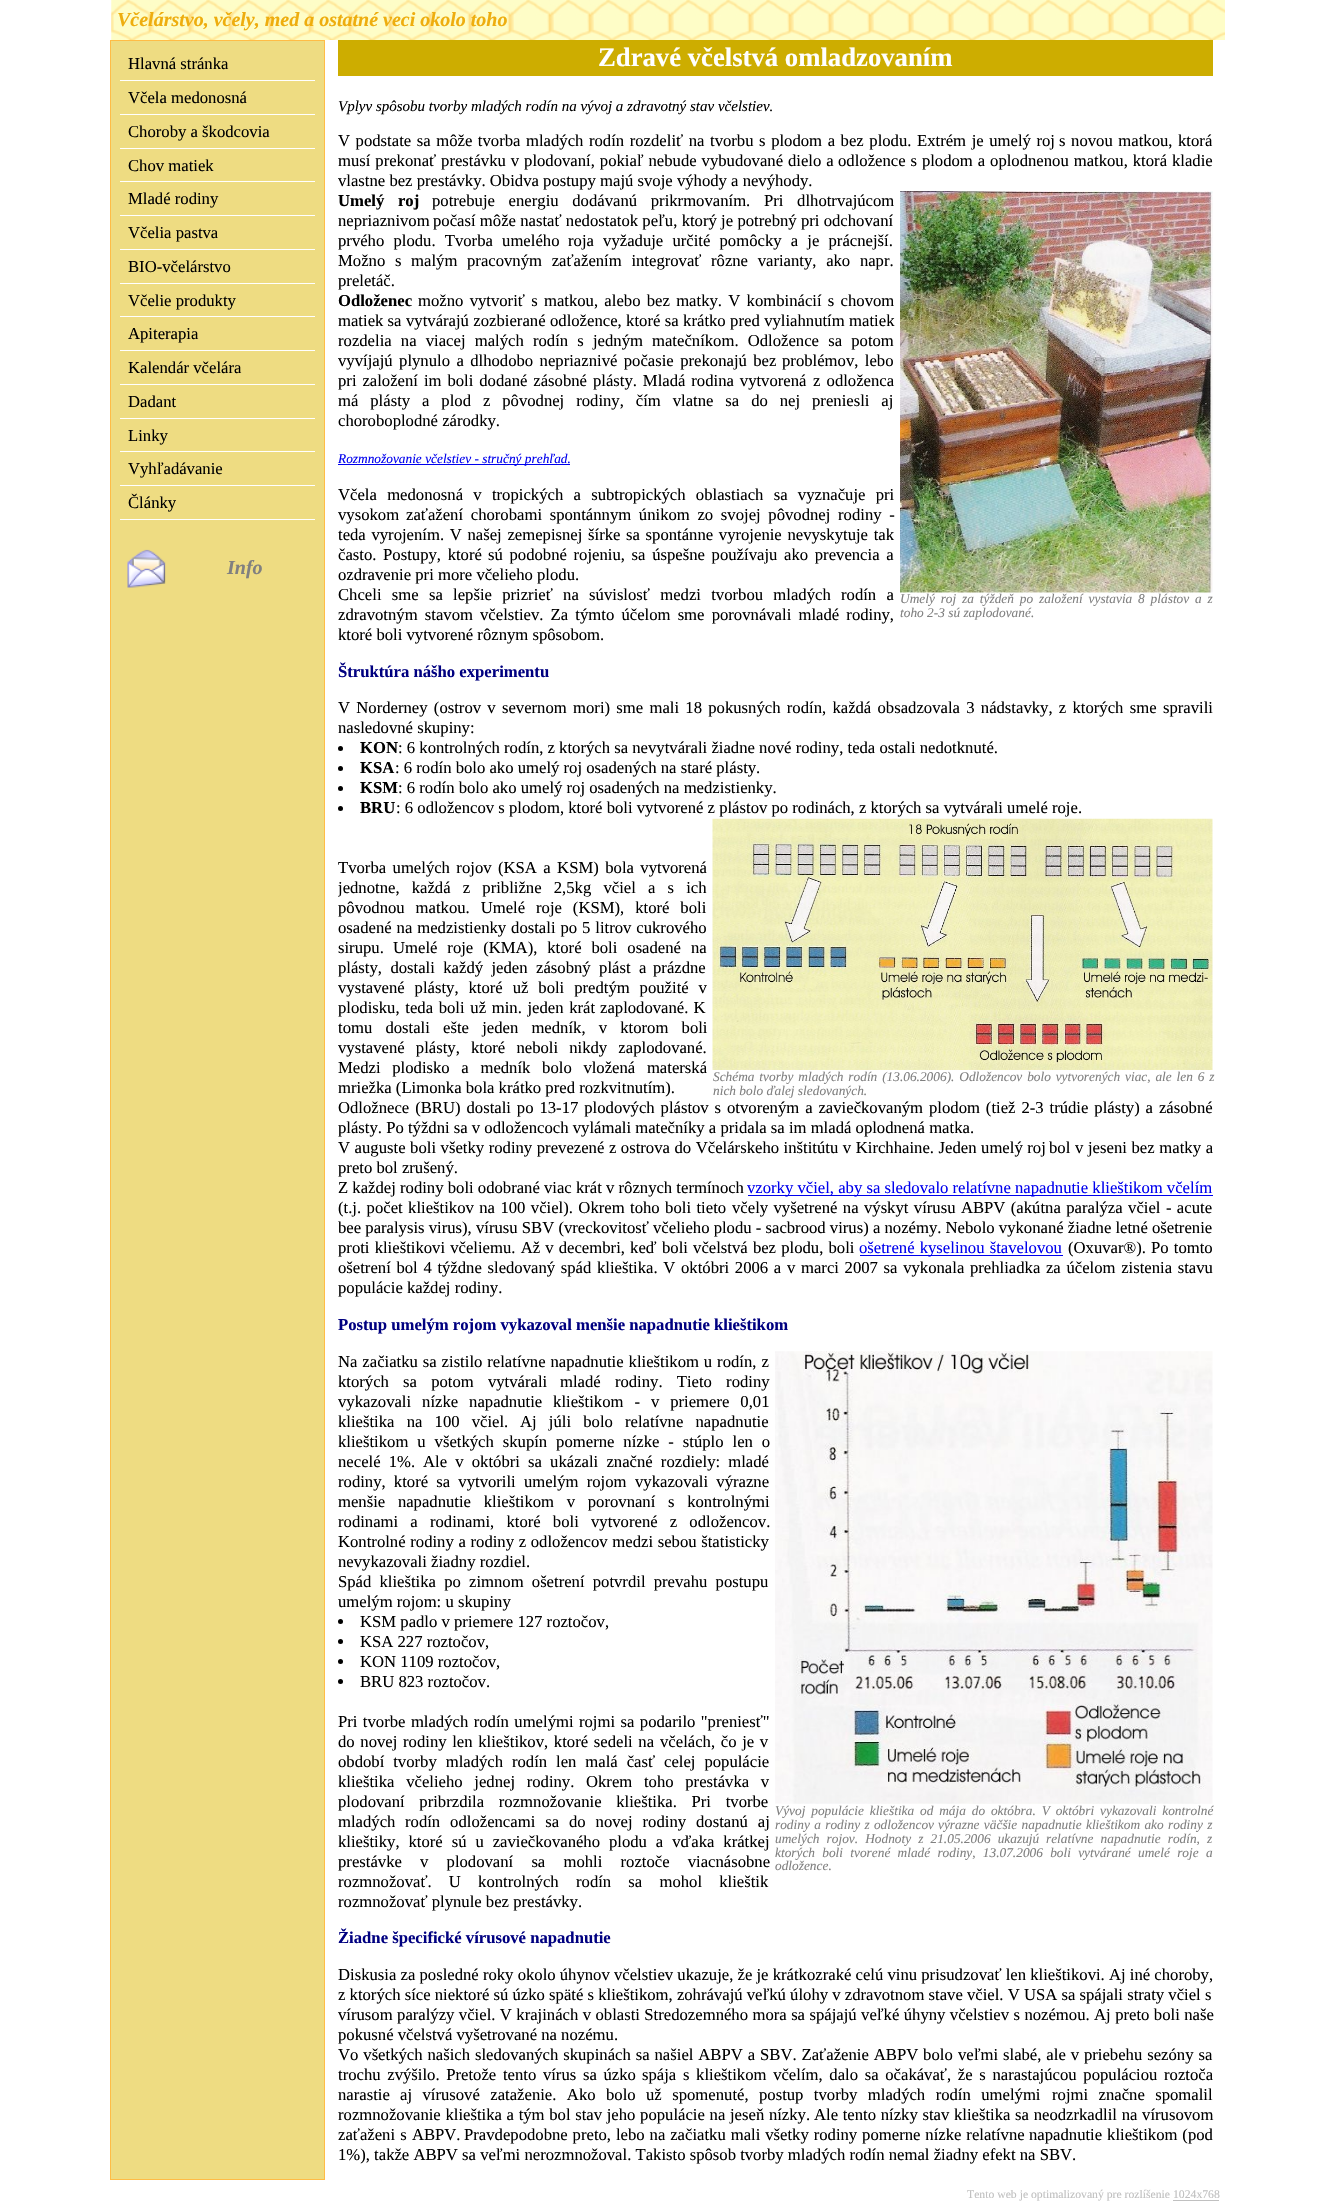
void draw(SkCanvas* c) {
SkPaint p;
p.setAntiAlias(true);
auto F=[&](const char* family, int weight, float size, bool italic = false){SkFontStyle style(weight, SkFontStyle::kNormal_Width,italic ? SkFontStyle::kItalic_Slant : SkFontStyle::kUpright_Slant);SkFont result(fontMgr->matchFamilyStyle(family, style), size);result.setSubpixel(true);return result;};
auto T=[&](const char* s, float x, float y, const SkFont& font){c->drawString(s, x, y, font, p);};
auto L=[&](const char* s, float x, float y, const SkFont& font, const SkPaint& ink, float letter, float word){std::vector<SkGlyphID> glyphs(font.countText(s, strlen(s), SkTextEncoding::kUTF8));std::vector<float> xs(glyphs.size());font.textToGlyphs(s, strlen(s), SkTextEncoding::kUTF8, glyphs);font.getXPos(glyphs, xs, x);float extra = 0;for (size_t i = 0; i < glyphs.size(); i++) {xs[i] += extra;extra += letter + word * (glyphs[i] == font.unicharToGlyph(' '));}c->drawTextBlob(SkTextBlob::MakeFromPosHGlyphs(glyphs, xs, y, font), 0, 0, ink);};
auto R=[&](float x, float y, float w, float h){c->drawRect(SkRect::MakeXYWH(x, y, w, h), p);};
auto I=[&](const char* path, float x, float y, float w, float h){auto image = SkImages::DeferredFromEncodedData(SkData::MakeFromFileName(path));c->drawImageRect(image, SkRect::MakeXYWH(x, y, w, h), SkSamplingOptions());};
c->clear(0xffffffff);
I("1.png",111,0,1114,40);
auto f1 = F("Liberation Serif",700,20,true);
p.setColor(0xffeead0e);
T("Včelárstvo, včely, med a ostatné veci okolo toho",117,26,f1);
p.setColor(0xffeedc82);
R(111,41,213,2138);
p.setColor(0xffffbc46);
R(110,40,215,1);
R(324,40,1,2140);
R(110,2179,215,1);
R(110,40,1,2140);
p.setColor(0xffffffff);
R(120,80,195,1);
auto f2 = F("Liberation Serif",400,16.67);
p.setColor(0xff000000);
T("Hlavná stránka",128,69,f2);
p.setColor(0xffffffff);
R(120,114,195,1);
p.setColor(0xff000000);
T("Včela medonosná",128,103,f2);
p.setColor(0xffffffff);
R(120,148,195,1);
p.setColor(0xff000000);
T("Choroby a škodcovia",128,137,f2);
p.setColor(0xffffffff);
R(120,181,195,1);
p.setColor(0xff000000);
T("Chov matiek",128,171,f2);
p.setColor(0xffffffff);
R(120,215,195,1);
p.setColor(0xff000000);
T("Mladé rodiny",128,204,f2);
p.setColor(0xffffffff);
R(120,249,195,1);
p.setColor(0xff000000);
T("Včelia pastva",128,238,f2);
p.setColor(0xffffffff);
R(120,283,195,1);
p.setColor(0xff000000);
T("BIO-včelárstvo",128,272,f2);
p.setColor(0xffffffff);
R(120,316,195,1);
p.setColor(0xff000000);
T("Včelie produkty",128,306,f2);
p.setColor(0xffffffff);
R(120,350,195,1);
p.setColor(0xff000000);
T("Apiterapia",128,339,f2);
p.setColor(0xffffffff);
R(120,384,195,1);
p.setColor(0xff000000);
T("Kalendár včelára",128,373,f2);
p.setColor(0xffffffff);
R(120,418,195,1);
p.setColor(0xff000000);
T("Dadant",128,407,f2);
p.setColor(0xffffffff);
R(120,451,195,1);
p.setColor(0xff000000);
T("Linky",128,441,f2);
p.setColor(0xffffffff);
R(120,485,195,1);
p.setColor(0xff000000);
T("Vyhľadávanie",128,474,f2);
p.setColor(0xffffffff);
R(120,519,195,1);
p.setColor(0xff000000);
T("Články",128,508,f2);
I("2.png",127,549,39,39);
p.setColor(0xff808080);
T("Info",227,574,f1);
p.setColor(0xffcdad00);
R(338,40,875,36);
auto f3 = F("Liberation Serif",700,26.7);
p.setColor(0xffffffff);
T("Zdravé včelstvá omladzovaním",598,66,f3);
auto f4 = F("Liberation Serif",400,15,true);
p.setColor(0xff000000);
T("Vplyv spôsobu tvorby mladých rodín na vývoj a zdravotný stav včelstiev.",338,111,f4);
L("V podstate sa môže tvorba mladých rodín rozdeliť na tvorbu s plodom a bez plodu. Extrém je umelý roj",338,146,f2,p,0,1.4);
L("s novou matkou, ktorá",1059,146,f2,p,0,1.4);
L("musí prekonať prestávku v plodovaní, pokiaľ nebude vybudované dielo a",338,166,f2,p,0,.75);
L("odložence s plodom a oplodnenou matkou, ktorá kladie",838,166,f2,p,0,.75);
T("vlastne bez prestávky. Obidva postupy majú svoje výhody a nevýhody.",338,186,f2);
auto f5 = F("Liberation Serif",700,16.67);
L("Umelý roj",338,206,f5,p,0,9.5);
L("potrebuje energiu dodávanú prikrmovaním. Pri dlhotrvajúcom",432,206,f2,p,0,9.5);
T("nepriaznivom",338,226,f2);
L("počasí môže nastať nedostatok peľu, ktorý je potrebný pri odchovaní",433,226,f2,p,0,.1);
L("prvého plodu. Tvorba umelého",338,246,f2,p,0,5);
L("roja vyžaduje určité pomôcky a je prácnejší.",568,246,f2,p,0,5);
L("Možno s malým pracovným zaťažením integrovať",338,266,f2,p,0,5.5);
L("rôzne varianty, ako napr.",711,266,f2,p,0,5.5);
T("preletáč.",338,286,f2);
T("Odloženec",338,306,f5);
L("možno vytvoriť s matkou, alebo bez matky. V kombinácií s chovom",418,306,f2,p,0,2.1);
T("matiek sa",338,326,f2);
L("vytvárajú zozbierané odložence, ktoré sa krátko pred vyliahnutím matiek",406,326,f2,p,0,.25);
L("rozdelia na viacej malých rodín s jedným",338,346,f2,p,0,5);
L("matečníkom. Odložence sa potom",652,346,f2,p,0,5);
L("vyvíjajú plynulo a dlhodobo nepriaznivé počasie prekonajú bez",338,366,f2,p,0,2.25);
L("problémov, lebo",782,366,f2,p,0,2.25);
L("pri založení im boli dodané zásobné plásty. Mladá rodina vytvorená",338,386,f2,p,0,1.75);
L("z odloženca",813,386,f2,p,0,2);
L("má plásty a plod z pôvodnej rodiny, čím vlatne sa do nej preniesli aj",338,406,f2,p,0,7.75);
T("choroboplodné zárodky.",338,426,f2);
p.setColor(0xff0000ee);
R(338,464,232,1);
auto f6 = F("Liberation Serif",400,13.35,true);
T("Rozmnožovanie včelstiev - stručný prehľad.",338,463,f6);
p.setColor(0xff000000);
L("Včela medonosná v tropických a subtropických oblastiach sa vyznačuje pri",338,500,f2,p,0,6.1);
T("vysokom",338,520,f2);
L("zaťažení chorobami spontánnym únikom zo svojej pôvodnej rodiny -",406,520,f2,p,0,3.5);
L("teda vyrojením. V našej zemepisnej šírke",338,540,f2,p,0,1.5);
L("sa spontánne vyrojenie nevyskytuje tak",626,540,f2,p,0,1.5);
L("často. Postupy, ktoré",338,560,f2,p,0,2.5);
L("sú podobné rojeniu, sa úspešne používaju ako prevencia a",488,560,f2,p,0,2.5);
T("ozdravenie pri more včelieho plodu.",338,580,f2);
L("Chceli sme sa lepšie prizrieť na súvislosť medzi tvorbou mladých rodín a",338,600,f2,p,0,6.1);
I("3.png",900,191,313,402);
p.setColor(0xff808080);
L("Umelý roj za týždeň po založení vystavia 8 plástov a z",900,603,f6,p,0,2.5);
T("toho 2-3 sú zaplodované.",900,617,f6);
p.setColor(0xff000000);
L("zdravotným stavom",338,620,f2,p,0,3);
L("včelstiev. Za týmto účelom sme porovnávali mladé rodiny,",480,620,f2,p,0,3);
T("ktoré boli vytvorené rôznym spôsobom.",338,640,f2);
p.setColor(0xff000080);
T("Štruktúra nášho experimentu",338,677,f5);
p.setColor(0xff000000);
L("V Norderney (ostrov v severnom mori) sme mali 18 pokusných rodín, každá obsadzovala 3 nádstavky, z ktorých sme",338,713,f2,p,0,2.1);
T("spravili",1163,713,f2);
T("nasledovné skupiny:",338,733,f2);
c->drawCircle(340.5,748.5,2.5,p);
T("KON",360,753,f5);
T(": 6 kontrolných rodín, z ktorých sa nevytvárali žiadne nové rodiny, teda ostali nedotknuté.",398,753,f2);
c->drawCircle(340.5,768.5,2.5,p);
T("KSA",360,773,f5);
T(": 6 rodín bolo ako umelý roj osadených na staré plásty.",395,773,f2);
c->drawCircle(340.5,788.5,2.5,p);
T("KSM",360,793,f5);
T(": 6 rodín bolo ako umelý roj osadených na medzistienky.",398,793,f2);
c->drawCircle(340.5,808.5,2.5,p);
T("BRU",360,813,f5);
T(": 6 odložencov s plodom, ktoré boli vytvorené z plástov po rodinách, z ktorých sa vytvárali umelé roje.",396,813,f2);
c->save();
c->clipRect(SkRect::MakeXYWH(338,76,881,2109));
L("Tvorba umelých rojov (KSA a KSM) bola vytvorená",338,873,f2,p,0,2.25);
L("jednotne, každá z približne 2,5kg včiel a s ich",338,893,f2,p,0,8);
c->restore();
L("pôvodnou matkou. Umelé roje (KSM), ktoré boli",338,913,f2,p,0,6.75);
L("osadené na medzistienky dostali po 5 litrov cukrového",338,933,f2,p,0,.75);
T("sirupu.",338,953,f2);
L("Umelé roje (KMA), ktoré boli osadené na",393,953,f2,p,0,5.75);
L("plásty, dostali každý jeden zásobný plást a",338,973,f2,p,0,4.25);
T("prázdne",653,973,f2);
L("vystavené plásty, ktoré už boli predtým použité v",338,993,f2,p,0,5.75);
L("plodisku, teda boli už min. jeden krát",338,1013,f2,p,0,1.5);
L("zaplodované. K",600,1013,f2,p,0,1);
L("tomu dostali ešte jeden medník, v ktorom boli",338,1033,f2,p,0,9);
L("vystavené plásty, ktoré neboli nikdy zaplodované.",338,1053,f2,p,0,7);
L("Medzi plodisko a medník bolo vložená materská",338,1073,f2,p,0,7.5);
T("mriežka (Limonka bola krátko pred rozkvitnutím).",338,1093,f2);
I("4.png",712,818,501,252);
p.setColor(0xff808080);
L("Schéma tvorby mladých rodín (13.06.2006). Odložencov bolo vytvorených viac, ale len 6 z",713,1081,f6,p,0,1.5);
T("nich bolo ďalej sledovaných.",713,1095,f6);
p.setColor(0xff000000);
L("Odložnece (BRU) dostali po 13-17 plodových plástov s otvoreným a zaviečkovaným plodom (tiež 2-3 trúdie plásty) a zásobné",338,1113,f2,p,0,1.75);
T("plásty. Po týždni sa v odložencoch vylámali matečníky a pridala sa im mladá oplodnená matka.",338,1133,f2);
L("V auguste boli všetky rodiny prevezené z ostrova do Včelárskeho inštitútu v Kirchhaine. Jeden umelý roj",338,1153,f2,p,0,.4);
L("bol v jeseni bez matky a",1049,1153,f2,p,0,.5);
T("preto bol zrušený.",338,1173,f2);
T("Z každej rodiny boli odobrané viac krát v rôznych termínoch",338,1193,f2);
p.setColor(0xff0000ee);
R(748,1195,465,1);
T("vzorky včiel, aby sa sledovalo relatívne napadnutie klieštikom včelím",747,1193,f2);
p.setColor(0xff000000);
L("(t.j. počet klieštikov na 100 včiel). Okrem toho boli tieto",338,1213,f2,p,0,1.25);
L("včely vyšetrené na výskyt vírusu ABPV (akútna paralýza včiel - acute",732,1213,f2,p,0,1.25);
T("bee paralysis virus), vírusu SBV (vreckovitosť včelieho plodu - sacbrood virus) a nozémy. Nebolo vykonané žiadne letné ošetrenie",338,1233,f2);
L("proti klieštikovi včeliemu. Až v decembri, keď",338,1253,f2,p,0,1);
L("boli včelstvá bez plodu, boli",662,1253,f2,p,0,1);
p.setColor(0xff0000ee);
R(860,1255,203,1);
L("ošetrené kyselinou štavelovou",859,1253,f2,p,0,1);
p.setColor(0xff000000);
T("(Oxuvar®).",1068,1253,f2);
L("Po tomto",1151,1253,f2,p,0,1);
L("ošetrení bol 4 týždne sledovaný spád klieštika. V októbri 2006 a",338,1273,f2,p,0,1.5);
L("v marci 2007 sa vykonala prehliadka za účelom zistenia stavu",787,1273,f2,p,0,1.5);
T("populácie každej rodiny.",338,1293,f2);
p.setColor(0xff000080);
T("Postup umelým rojom vykazoval menšie napadnutie klieštikom",338,1330,f5);
p.setColor(0xff000000);
L("Na začiatku sa zistilo relatívne napadnutie klieštikom u rodín, z",338,1367,f2,p,0,.75);
L("ktorých sa potom vytvárali",338,1387,f2,p,0,10);
L("mladé rodiny. Tieto rodiny",560,1387,f2,p,0,10);
L("vykazovali nízke napadnutie klieštikom - v priemere 0,01",338,1407,f2,p,0,6.75);
L("klieštika na 100 včiel.",338,1427,f2,p,0,8);
L("Aj júli bolo relatívne napadnutie",520,1427,f2,p,0,8);
L("klieštikom u všetkých skupín pomerne nízke - stúplo len o",338,1447,f2,p,0,4.75);
L("necelé 1%.",338,1467,f2,p,0,4);
L("Ale v októbri sa ukázali značné rozdiely: mladé",423,1467,f2,p,0,4);
L("rodiny, ktoré sa vytvorili umelým rojom",338,1487,f2,p,0,4);
L("vykazovali výrazne",635,1487,f2,p,0,4);
L("menšie napadnutie klieštikom v porovnaní s kontrolnými",338,1507,f2,p,0,8.5);
L("rodinami a rodinami, ktoré boli vytvorené z odložencov.",338,1527,f2,p,0,8);
L("Kontrolné rodiny a rodiny z odložencov medzi sebou štatisticky",338,1547,f2,p,0,.5);
T("nevykazovali žiadny rozdiel.",338,1567,f2);
L("Spád klieštika po zimnom ošetrení potvrdil prevahu postupu",338,1587,f2,p,0,4);
T("umelým rojom: u skupiny",338,1607,f2);
c->drawCircle(340.5,1621.5,2.5,p);
T("KSM padlo v priemere 127 roztočov,",360,1627,f2);
c->drawCircle(340.5,1641.5,2.5,p);
T("KSA 227 roztočov,",360,1647,f2);
c->drawCircle(340.5,1661.5,2.5,p);
T("KON 1109 roztočov,",360,1667,f2);
c->drawCircle(340.5,1681.5,2.5,p);
T("BRU 823 roztočov.",360,1687,f2);
L("Pri tvorbe mladých rodín umelými rojmi sa podarilo \"preniesť\"",338,1727,f2,p,0,1.25);
L("do novej rodiny len klieštikov, ktoré sedeli na",338,1747,f2,p,0,1.5);
L("včelách, čo je v",660,1747,f2,p,0,1.5);
L("období tvorby mladých rodín len malá časť celej populácie",338,1767,f2,p,0,4.75);
L("klieštika včelieho jednej rodiny.",338,1787,f2,p,0,7.5);
L("Okrem toho prestávka v",586,1787,f2,p,0,7.5);
L("plodovaní pribrzdila rozmnožovanie klieštika. Pri tvorbe",338,1807,f2,p,0,10.5);
T("mladých",338,1827,f2);
L("rodín odložencami sa do novej rodiny dostanú aj",405,1827,f2,p,0,5.75);
I("5.png",775,1351,438,453);
p.setColor(0xff808080);
L("Vývoj populácie klieštika od mája do októbra. V októbri vykazovali kontrolné",775,1815,f6,p,0,2.5);
L("rodiny a rodiny z odložencov",775,1829,f6,p,0,1);
L("výrazne väčšie napadnutie klieštikom ako rodiny z",938,1829,f6,p,0,1);
L("umelých rojov. Hodnoty z 21.05.2006 ukazujú",775,1843,f6,p,0,3.75);
L("relatívne napadnutie rodín, z",1046,1843,f6,p,0,3.75);
L("ktorých boli tvorené mladé rodiny, 13.07.2006 boli vytvárané umelé roje a",775,1857,f6,p,0,3.9);
T("odložence.",775,1870,f6);
p.setColor(0xff000000);
L("klieštiky, ktoré sú u zaviečkovaného plodu a vďaka krátkej",338,1847,f2,p,0,4.75);
L("prestávke v plodovaní sa mohli roztoče viacnásobne",338,1867,f2,p,0,14);
L("rozmnožovať. U kontrolných",338,1887,f2,p,0,13);
L("rodín sa mohol klieštik",576,1887,f2,p,0,13);
T("rozmnožovať plynule bez prestávky.",338,1907,f2);
p.setColor(0xff000080);
T("Žiadne špecifické vírusové napadnutie",338,1943,f5);
p.setColor(0xff000000);
T("Diskusia za posledné roky okolo úhynov včelstiev ukazuje, že je krátkozraké celú vinu prisudzovať len klieštikovi. Aj iné choroby,",338,1980,f2);
T("z ktorých síce niektoré sú úzko späté s klieštikom, zohrávajú veľkú úlohy v zdravotnom stave včiel. V USA sa spájali straty včiel s",338,2000,f2);
L("vírusom paralýzy včiel. V krajinách v oblasti Stredozemného mora sa spájajú veľké úhyny včelstiev s nozémou. Aj preto boli naše",338,2020,f2,p,0,.25);
T("pokusné včelstvá vyšetrované na nozému.",338,2040,f2);
L("Vo všetkých našich sledovaných skupinách sa našiel ABPV a SBV. Zaťaženie ABPV bolo",338,2060,f2,p,0,.75);
L("veľmi slabé, ale v priebehu sezóny sa",958,2060,f2,p,0,.75);
L("trochu zvýšilo. Pretože tento vírus sa úzko",338,2080,f2,p,0,2.5);
L("spája s klieštikom včelím, dalo sa očakávať, že s narastajúcou populáciou roztoča",642,2080,f2,p,0,2.5);
T("narastie",338,2100,f2);
L("aj vírusové zataženie. Ako bolo už spomenuté, postup tvorby mladých rodín umelými",400,2100,f2,p,0,6.25);
L("rojmi značne spomalil",1052,2100,f2,p,0,6.25);
L("rozmnožovanie klieštika a tým bol stav jeho populácie na jeseň nízky.",338,2120,f2,p,0,.5);
L("Ale tento nízky stav klieštika sa neodzrkadlil na vírusovom",814,2120,f2,p,0,.5);
L("zaťaženi s ABPV.",338,2140,f2,p,0,1);
L("Pravdepodobne preto, lebo na začiatku mali všetky rodiny pomerne nízke relatívne",464,2140,f2,p,0,.75);
L("napadnutie klieštikom (pod",1029,2140,f2,p,0,.75);
T("1%), takže ABPV sa veľmi nerozmnožoval. Takisto spôsob tvorby mladých rodín nemal žiadny efekt na SBV.",338,2160,f2);
auto f7 = F("Liberation Serif",400,11.7);
p.setColor(0xffc0c0c0);
T("Tento web je optimalizovaný pre rozlíšenie 1024x768",967,2198,f7);
R(1173,2200,46,1);
}
